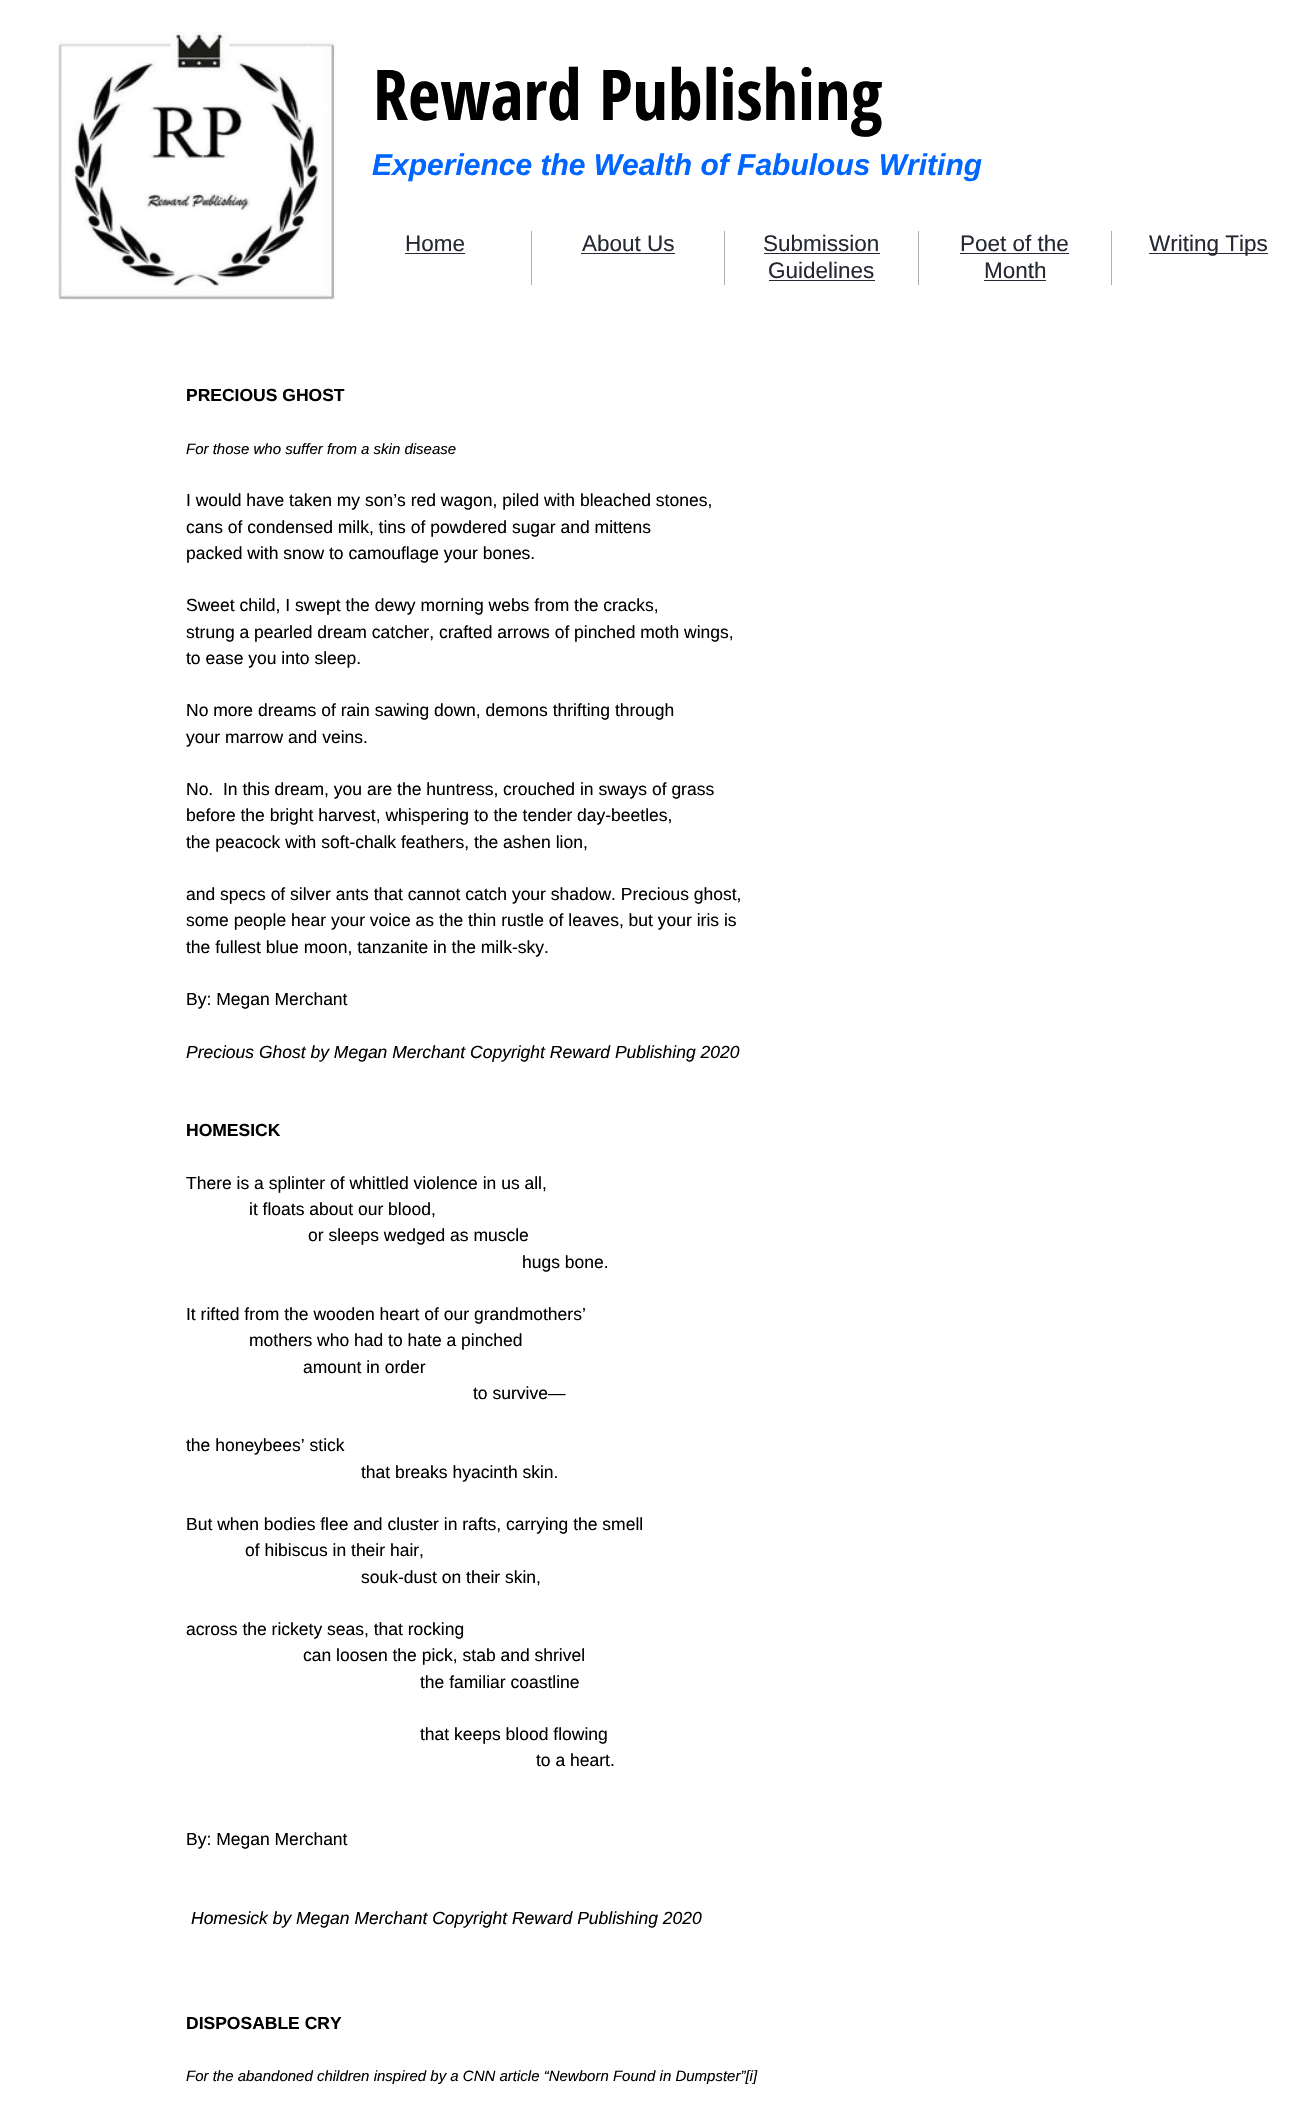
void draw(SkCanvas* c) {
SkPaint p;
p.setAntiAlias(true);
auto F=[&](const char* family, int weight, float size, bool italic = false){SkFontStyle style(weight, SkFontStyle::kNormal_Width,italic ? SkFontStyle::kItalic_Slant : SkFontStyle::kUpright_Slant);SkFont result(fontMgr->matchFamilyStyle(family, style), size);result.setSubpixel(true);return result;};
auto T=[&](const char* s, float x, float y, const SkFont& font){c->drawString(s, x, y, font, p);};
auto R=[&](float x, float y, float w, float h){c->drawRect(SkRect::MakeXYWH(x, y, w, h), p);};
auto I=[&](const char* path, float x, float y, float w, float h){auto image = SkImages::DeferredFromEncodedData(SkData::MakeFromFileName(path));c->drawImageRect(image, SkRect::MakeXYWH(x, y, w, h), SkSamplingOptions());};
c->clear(0xffffffff);
I("1.png",58,31,278,269);
auto f1 = F("Open Sans Condensed",700,70);
p.setColor(0xff000000);
T("Reward Publishing",373,120,f1);
auto f2 = F("Liberation Sans",700,30,true);
p.setColor(0xff0066ff);
T("Experience the Wealth of Fabulous Writing",372,175,f2);
p.setColor(0xffaeaeae);
R(531,231,1,54);
auto f3 = F("Liberation Sans",400,22.5);
p.setColor(0xff252832);
T("Home",405,251,f3);
R(405,253,60,1);
p.setColor(0xffaeaeae);
R(724,231,1,54);
p.setColor(0xff252832);
T("About Us",582,251,f3);
R(581,253,94,1);
p.setColor(0xffaeaeae);
R(918,231,1,54);
p.setColor(0xff252832);
T("Submission",763,251,f3);
R(764,253,116,1);
T("Guidelines",768,278,f3);
R(769,280,106,1);
p.setColor(0xffaeaeae);
R(1111,231,1,54);
p.setColor(0xff252832);
T("Poet of the",960,251,f3);
R(960,253,109,1);
T("Month",984,278,f3);
R(984,280,62,1);
R(1149,253,119,1);
T("Writing Tips",1149,251,f3);
auto f4 = F("Liberation Sans",700,17.5);
p.setColor(0xff000000);
T("PRECIOUS GHOST",186,401,f4);
auto f5 = F("Liberation Sans",400,15,true);
T("For those who suffer from a skin disease",186,454,f5);
auto f6 = F("Liberation Sans",400,17.5);
T("I would have taken my son’s red wagon, piled with bleached stones,",186,506,f6);
T("cans of condensed milk, tins of powdered sugar and mittens",186,533,f6);
T("packed with snow to camouflage your bones.",186,559,f6);
T("Sweet child, I swept the dewy morning webs from the cracks,",186,611,f6);
T("strung a pearled dream catcher, crafted arrows of pinched moth wings,",186,638,f6);
T("to ease you into sleep.",186,664,f6);
T("No more dreams of rain sawing down, demons thrifting through",186,716,f6);
T("your marrow and veins.",186,743,f6);
T("No.  In this dream, you are the huntress, crouched in sways of grass",186,795,f6);
T("before the bright harvest, whispering to the tender day-beetles,",186,821,f6);
T("the peacock with soft-chalk feathers, the ashen lion,",186,848,f6);
T("and specs of silver ants that cannot catch your shadow. Precious ghost,",186,900,f6);
T("some people hear your voice as the thin rustle of leaves, but your iris is",186,926,f6);
T("the fullest blue moon, tanzanite in the milk-sky.",186,953,f6);
T("By: Megan Merchant",186,1005,f6);
auto f7 = F("Liberation Sans",400,17.5,true);
T("Precious Ghost by Megan Merchant Copyright Reward Publishing 2020",186,1058,f7);
T("HOMESICK",186,1136,f4);
T("There is a splinter of whittled violence in us all,",186,1189,f6);
T("it floats about our blood,",249,1215,f6);
T("or sleeps wedged as muscle",308,1241,f6);
T("hugs bone.",522,1268,f6);
T("It rifted from the wooden heart of our grandmothers’",186,1320,f6);
T("mothers who had to hate a pinched",249,1346,f6);
T("amount in order",303,1373,f6);
T("to survive—",473,1399,f6);
T("the honeybees’ stick",186,1451,f6);
T("that breaks hyacinth skin.",361,1478,f6);
T("But when bodies flee and cluster in rafts, carrying the smell",186,1530,f6);
T("of hibiscus in their hair,",245,1556,f6);
T("souk-dust on their skin,",361,1583,f6);
T("across the rickety seas, that rocking",186,1635,f6);
T("can loosen the pick, stab and shrivel",303,1661,f6);
T("the familiar coastline",420,1688,f6);
T("that keeps blood flowing",420,1740,f6);
T("to a heart.",536,1766,f6);
T("By: Megan Merchant",186,1845,f6);
T("Homesick by Megan Merchant Copyright Reward Publishing 2020",191,1924,f7);
T("DISPOSABLE CRY",186,2029,f4);
T("For the abandoned children inspired by a CNN article “Newborn Found in Dumpster”[i]",186,2081,f5);
}
